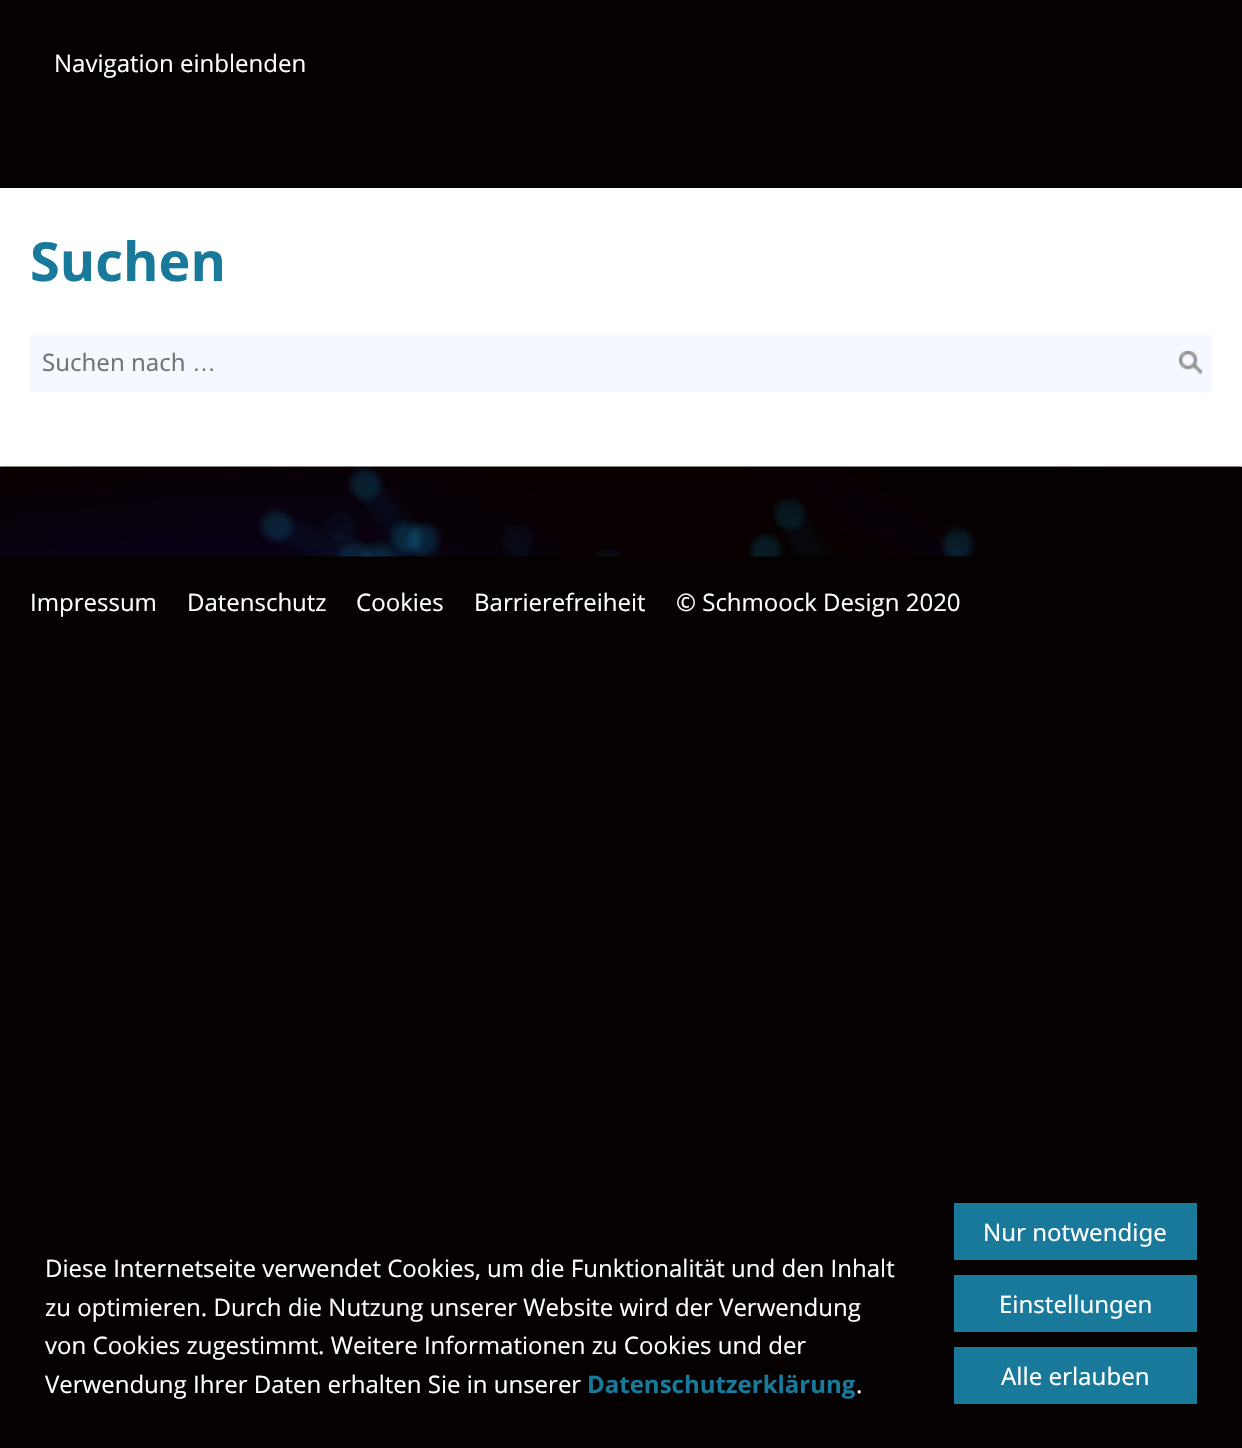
void draw(SkCanvas* c) {
SkPaint p;
p.setAntiAlias(true);
auto F=[&](const char* family, int weight, float size, bool italic = false){SkFontStyle style(weight, SkFontStyle::kNormal_Width,italic ? SkFontStyle::kItalic_Slant : SkFontStyle::kUpright_Slant);SkFont result(fontMgr->matchFamilyStyle(family, style), size);result.setSubpixel(true);return result;};
auto T=[&](const char* s, float x, float y, const SkFont& font){c->drawString(s, x, y, font, p);};
auto R=[&](float x, float y, float w, float h){c->drawRect(SkRect::MakeXYWH(x, y, w, h), p);};
auto I=[&](const char* path, float x, float y, float w, float h){auto image = SkImages::DeferredFromEncodedData(SkData::MakeFromFileName(path));c->drawImageRect(image, SkRect::MakeXYWH(x, y, w, h), SkSamplingOptions());};
c->clear(0xff050100);
auto f1 = F("Open Sans",400,24);
p.setColor(0xffffffff);
T("Navigation einblenden",54,72,f1);
R(0,188,1242,279);
auto f2 = F("Open Sans",700,54);
p.setColor(0xff18799a);
T("Suchen",30,281,f2);
p.setColor(0xfff5f9ff);
R(30,335,1182,57);
auto f3 = F("Noto Sans",400,24);
p.setColor(0xff757575);
T("Suchen nach",42,371,f3);
auto f4 = F("Liberation Sans",400,24);
T("…",192,371,f4);
I("1.png",1179,351,24,24);
I("2.png",0,466,1242,91);
p.setColor(0xffffffff);
T("Impressum",30,611,f1);
T("Datenschutz",187,611,f1);
T("Cookies",356,611,f1);
T("Barrierefreiheit",474,611,f1);
T("© Schmoock Design 2020",676,611,f1);
T("Diese Internetseite verwendet Cookies, um die Funktionalität und den Inhalt",45,1277,f1);
T("zu optimieren. Durch die Nutzung unserer Website wird der Verwendung",45,1316,f1);
T("von Cookies zugestimmt. Weitere Informationen zu Cookies und der",45,1354,f1);
T("Verwendung Ihrer Daten erhalten Sie in unserer",45,1393,f1);
auto f5 = F("Open Sans",700,24);
p.setColor(0xff18799a);
T("Datenschutzerklärung",587,1393,f5);
p.setColor(0xffffffff);
T(".",856,1393,f1);
p.setColor(0xff18799a);
R(954,1203,243,57);
p.setColor(0xffffffff);
T("Nur notwendige",983,1241,f3);
p.setColor(0xff18799a);
R(954,1275,243,57);
p.setColor(0xffffffff);
T("Einstellungen",999,1313,f3);
p.setColor(0xff18799a);
R(954,1347,243,57);
p.setColor(0xffffffff);
T("Alle erlauben",1001,1385,f3);
}
